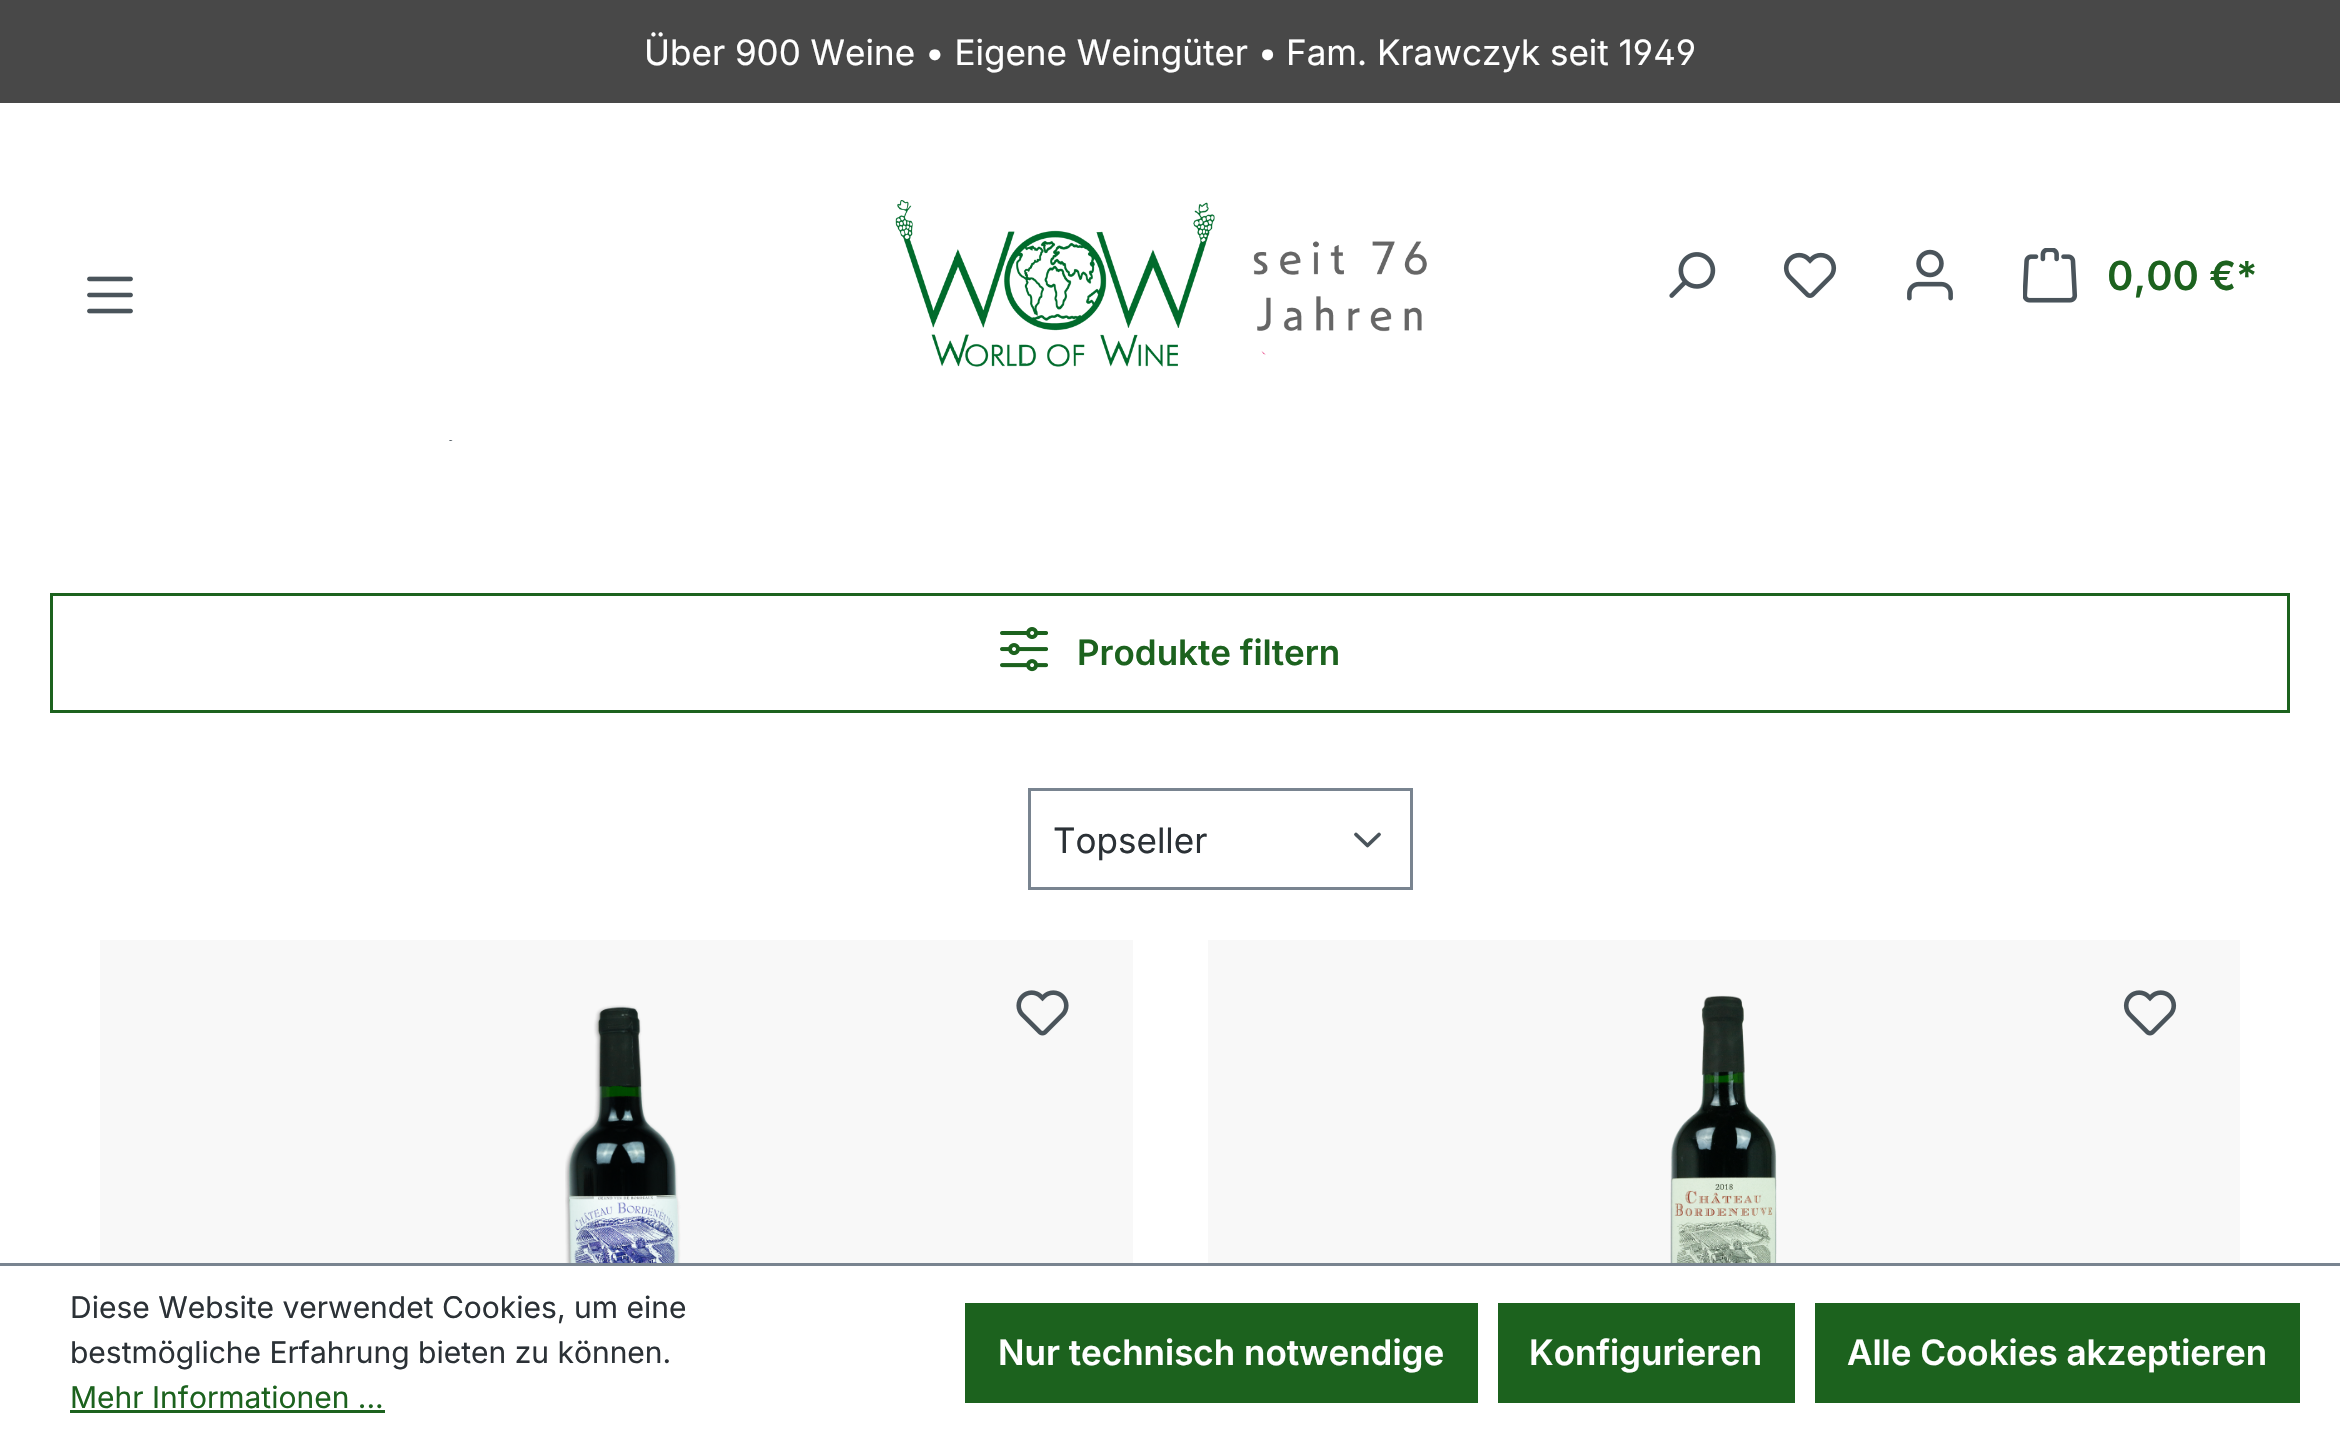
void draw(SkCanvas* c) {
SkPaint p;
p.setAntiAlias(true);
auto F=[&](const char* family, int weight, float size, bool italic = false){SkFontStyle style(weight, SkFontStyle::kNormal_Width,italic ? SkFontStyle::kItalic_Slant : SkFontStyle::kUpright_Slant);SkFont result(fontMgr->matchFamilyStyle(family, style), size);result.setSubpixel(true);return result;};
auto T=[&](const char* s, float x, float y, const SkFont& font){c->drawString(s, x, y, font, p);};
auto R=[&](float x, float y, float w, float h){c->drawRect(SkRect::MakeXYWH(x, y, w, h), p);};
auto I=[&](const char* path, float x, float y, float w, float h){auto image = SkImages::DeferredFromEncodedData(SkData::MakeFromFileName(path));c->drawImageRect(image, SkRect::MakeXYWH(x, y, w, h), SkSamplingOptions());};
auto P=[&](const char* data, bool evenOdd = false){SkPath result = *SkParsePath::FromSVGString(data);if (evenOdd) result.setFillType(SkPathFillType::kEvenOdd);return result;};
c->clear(0xffffffff);
p.setColor(0xff484848);
R(0,0,2340,103);
auto f1 = F("Inter",400,35);
p.setColor(0xffffffff);
T("Über 900 Weine • Eigene Weingüter •",644,65,f1);
auto f2 = F("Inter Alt",400,35);
T("Fam. Krawczyk seit 1949",1286,65,f2);
I("1.png",87,276,46,38);
I("2.png",895,200,532,167);
I("3.png",1669,252,47,46);
I("4.png",1783,252,54,46);
I("5.png",1907,249,46,52);
I("6.png",2023,248,55,55);
auto f3 = F("Inter",600,40);
p.setColor(0xff1c621e);
T("0,00 €*",2107,290,f3);
I("7.png",449,440,4,1);
p.setStroke(true);
p.setStrokeWidth(3);
c->drawRect(SkRect::MakeXYWH(51.5,594.5,2237,117),p);
I("8.png",1000,627,48,45);
auto f4 = F("Inter",600,35);
p.setStroke(false);
T("Produkte filtern",1077,665,f4);
p.setStroke(true);
p.setStrokeWidth(3.8);
p.setStrokeCap(SkPaint::kRound_Cap);
p.setStrokeJoin(SkPaint::kRound_Join);
p.setColor(0xff4a545b);
c->drawPath(P("M1356 834.5l11.5 11l11.5-11"),p);
p.setStrokeWidth(3);
p.setStrokeCap(SkPaint::kButt_Cap);
p.setStrokeJoin(SkPaint::kMiter_Join);
p.setColor(0xff798490);
c->drawRect(SkRect::MakeXYWH(1029.5,789.5,382,99),p);
p.setStroke(false);
p.setColor(0xff2b3136);
T("Topseller",1053,853,f1);
p.setColor(0xfff8f8f8);
R(100,940,1033,323);
I("9.png",565,1005,116,258);
I("10.png",1016,990,53,46);
R(1208,940,1032,323);
I("11.png",1670,995,107,268);
I("12.png",2123,990,54,46);
p.setColor(0xff798490);
R(0,1263,2340,3);
auto f5 = F("Inter",400,30);
p.setColor(0xff2b3136);
T("Diese Website verwendet Cookies, um eine",70,1318,f5);
T("bestmögliche Erfahrung bieten zu können.",70,1363,f5);
p.setColor(0xff1c621e);
T("Mehr Informationen ...",70,1408,f5);
R(70,1410,315,3);
R(965,1303,513,100);
p.setColor(0xffffffff);
T("Nur technisch notwendige",998,1365,f4);
p.setColor(0xff1c621e);
R(1498,1303,297,100);
p.setColor(0xffffffff);
T("Konfigurieren",1529,1365,f4);
p.setColor(0xff1c621e);
R(1815,1303,485,100);
p.setColor(0xffffffff);
T("Alle Cookies akzeptieren",1847,1365,f4);
}
